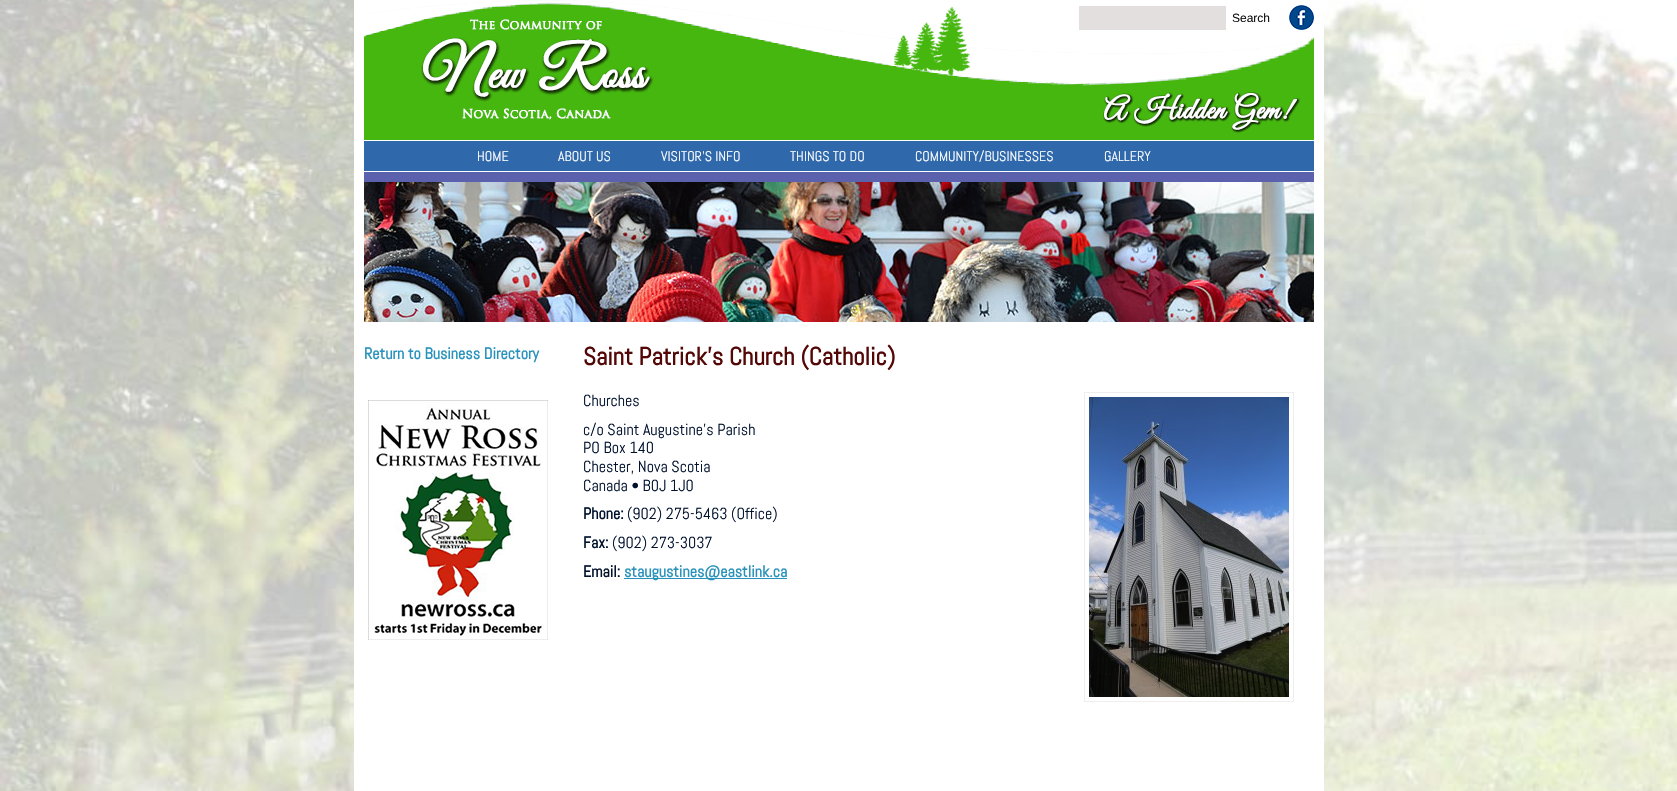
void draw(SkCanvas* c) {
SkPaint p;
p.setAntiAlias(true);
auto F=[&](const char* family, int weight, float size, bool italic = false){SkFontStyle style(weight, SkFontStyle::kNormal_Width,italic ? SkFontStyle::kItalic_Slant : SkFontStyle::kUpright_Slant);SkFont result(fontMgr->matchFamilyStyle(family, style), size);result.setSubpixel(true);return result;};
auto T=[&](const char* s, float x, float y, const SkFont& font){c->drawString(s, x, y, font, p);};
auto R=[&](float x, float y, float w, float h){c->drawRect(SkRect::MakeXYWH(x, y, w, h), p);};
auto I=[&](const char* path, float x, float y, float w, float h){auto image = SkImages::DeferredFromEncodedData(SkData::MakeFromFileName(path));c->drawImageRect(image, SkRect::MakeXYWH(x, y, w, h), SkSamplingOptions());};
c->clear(0xffffffff);
I("1.png",0,0,1677,791);
p.setColor(0xffffffff);
R(354,0,970,791);
I("2.png",364,0,950,140);
p.setColor(0xffe3dfdf);
R(1079,6,147,24);
auto f1 = F("Liberation Sans",400,12);
p.setColor(0xff111111);
T("Search",1232,22,f1);
I("3.png",1289,5,25,25);
p.setColor(0xff2f69ab);
R(364,141,950,30);
auto f2 = F("Abel",400,14);
p.setColor(0xffffffff);
T("HOME",477,161,f2);
T("ABOUT US",558,161,f2);
T("VISITOR’S INFO",661,161,f2);
T("THINGS TO DO",790,161,f2);
T("COMMUNITY/BUSINESSES",915,161,f2);
T("GALLERY",1104,161,f2);
p.setColor(0xff5b61ac);
R(364,172,950,10);
I("4.png",364,182,950,140);
auto f3 = F("Abel",700,16);
p.setColor(0xff2892bb);
T("Return to Business Directory",364,359,f3);
I("5.png",368,400,180,240);
auto f4 = F("Abel",700,25);
p.setColor(0xff530707);
T("Saint Patrick’s Church (Catholic)",583,365,f4);
auto f5 = F("Abel",400,16);
p.setColor(0xff00112d);
T("Churches",583,406,f5);
p.setStroke(true);
p.setStrokeWidth(1);
p.setColor(0xffeeeeee);
c->drawRect(SkRect::MakeXYWH(1084.5,392.5,209,309),p);
I("6.png",1089,397,200,300);
p.setStroke(false);
p.setColor(0xff00112d);
T("c/o Saint Augustine's Parish",583,435,f5);
T("PO Box 140",583,453,f5);
T("Chester, Nova Scotia",583,472,f5);
T("Canada • B0J 1J0",583,491,f5);
T("Phone:",583,519,f3);
T("(902) 275-5463 (Office)",627,519,f5);
T("Fax:",583,548,f3);
T("(902) 273-3037",612,548,f5);
T("Email:",583,577,f3);
p.setColor(0xff2892bb);
R(624,578,163,1);
T("staugustines@eastlink.ca",624,577,f3);
}
